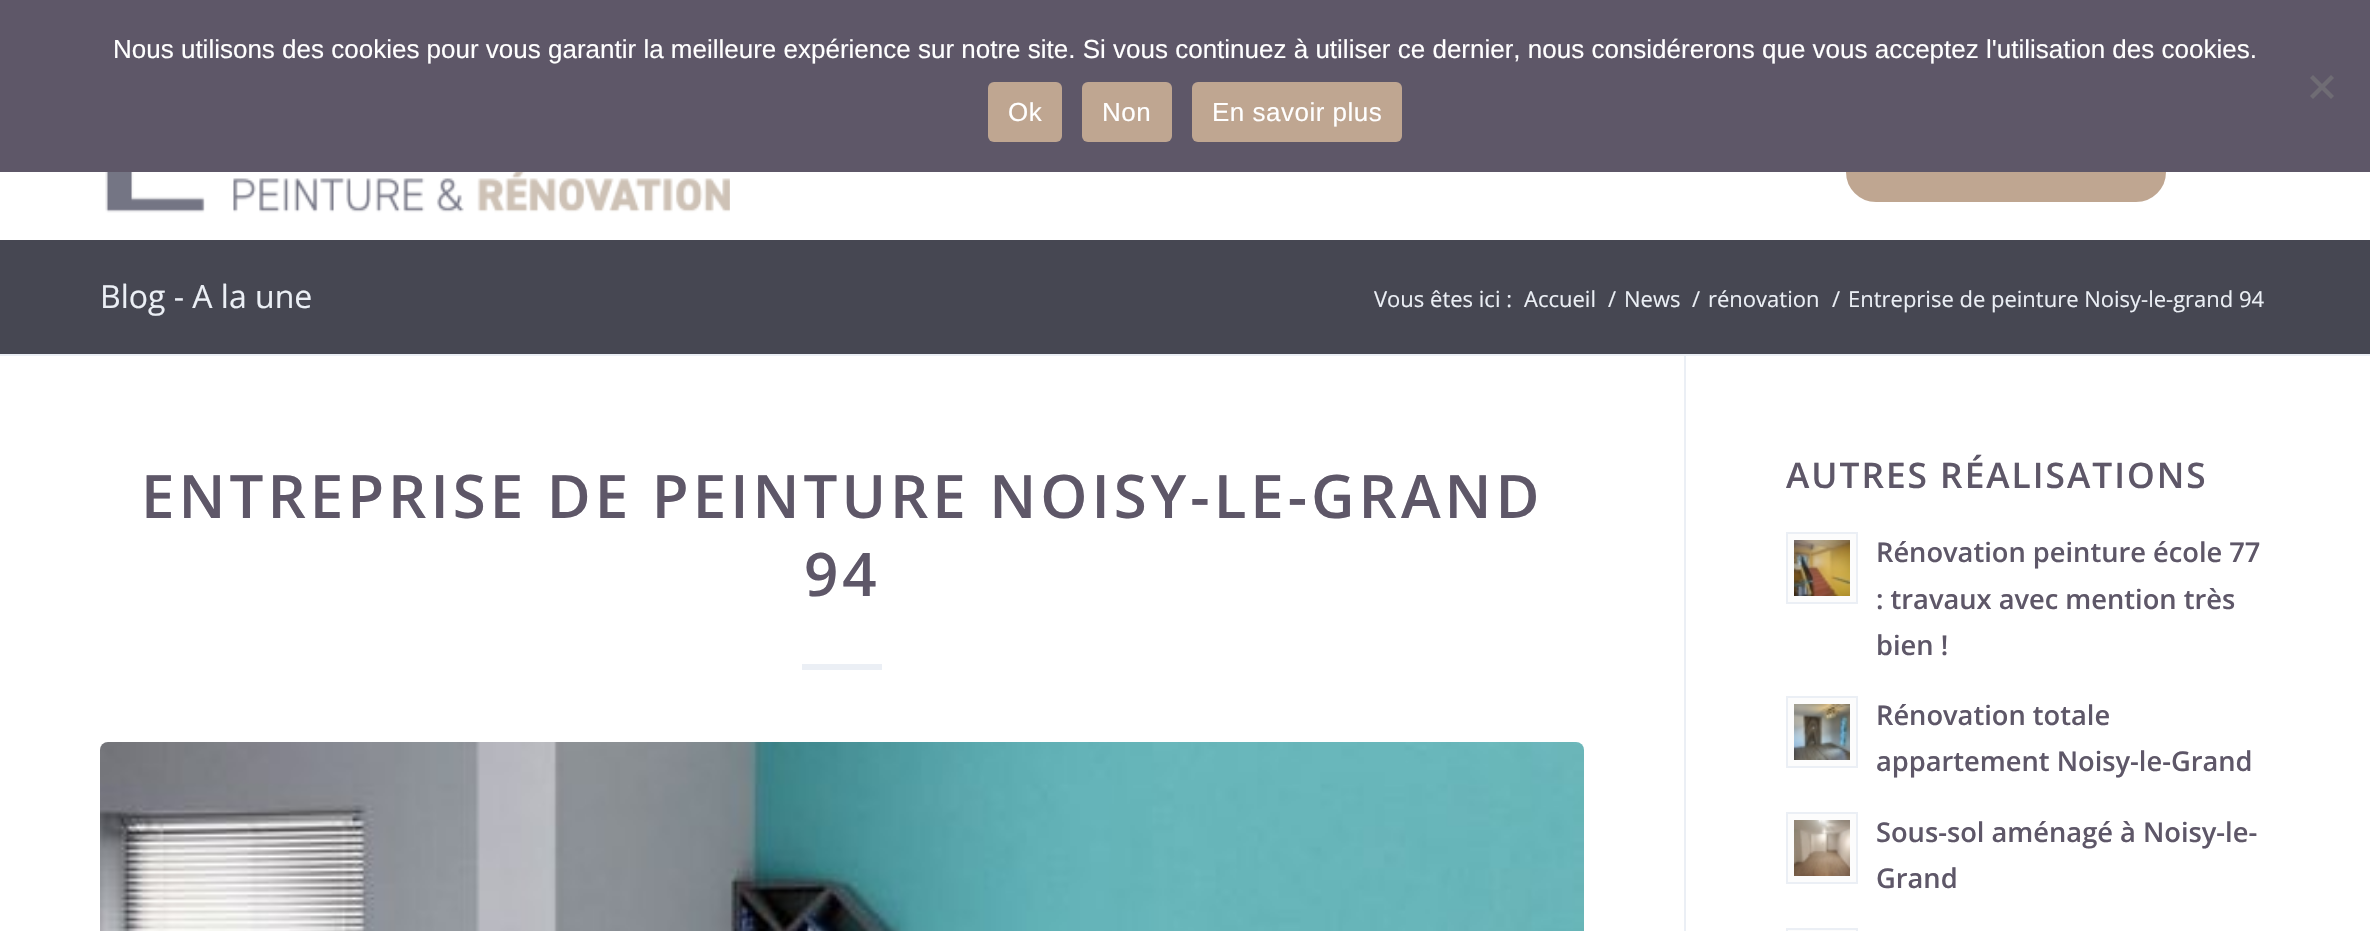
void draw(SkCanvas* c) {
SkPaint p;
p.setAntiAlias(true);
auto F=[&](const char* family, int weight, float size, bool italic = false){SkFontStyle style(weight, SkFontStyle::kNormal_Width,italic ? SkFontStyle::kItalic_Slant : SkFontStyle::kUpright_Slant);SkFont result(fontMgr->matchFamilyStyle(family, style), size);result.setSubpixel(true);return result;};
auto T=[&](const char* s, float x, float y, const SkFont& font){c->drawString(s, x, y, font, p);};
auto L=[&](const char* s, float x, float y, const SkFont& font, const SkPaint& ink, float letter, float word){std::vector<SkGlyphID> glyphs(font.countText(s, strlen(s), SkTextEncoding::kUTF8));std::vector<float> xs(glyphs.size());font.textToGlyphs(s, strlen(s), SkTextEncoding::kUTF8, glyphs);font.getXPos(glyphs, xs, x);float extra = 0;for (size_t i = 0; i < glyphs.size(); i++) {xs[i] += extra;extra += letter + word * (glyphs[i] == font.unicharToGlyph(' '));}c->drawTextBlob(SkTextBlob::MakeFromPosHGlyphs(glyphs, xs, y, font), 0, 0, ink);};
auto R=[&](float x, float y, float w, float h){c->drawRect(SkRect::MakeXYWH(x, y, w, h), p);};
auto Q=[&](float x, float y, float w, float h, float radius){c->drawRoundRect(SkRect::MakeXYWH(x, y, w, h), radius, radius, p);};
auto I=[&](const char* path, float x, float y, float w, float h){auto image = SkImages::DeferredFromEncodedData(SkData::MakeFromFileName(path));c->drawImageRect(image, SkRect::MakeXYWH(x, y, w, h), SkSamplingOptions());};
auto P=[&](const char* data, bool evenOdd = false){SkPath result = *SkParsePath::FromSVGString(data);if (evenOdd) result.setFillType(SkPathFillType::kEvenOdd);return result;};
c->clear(0xffffffff);
p.setColor(0xffbfa691);
c->drawRoundRect(SkRect::MakeXYWH(1848,100,316,100),28,28,p);
p.setStroke(true);
p.setStrokeWidth(4);
c->drawRoundRect(SkRect::MakeXYWH(1848,100,316,100),28,28,p);
p.setStroke(false);
p.setColor(0xff5e5768);
R(0,0,2370,172);
auto f1 = F("Liberation Sans",400,26);
p.setColor(0xffffffff);
T("Nous utilisons des cookies pour vous garantir la meilleure expérience sur notre site. Si vous continuez à utiliser ce dernier, nous considérerons que vous acceptez l'utilisation des cookies.",113,58,f1);
p.setColor(0xff6f6c74);
c->drawPath(P("M2331 75l3 3l-21 21l-3-3z"),p);
c->drawPath(P("M2310 78l3-3l21 21l-3 3z"),p);
p.setColor(0xffbfa691);
Q(988,82,74,60,6);
p.setColor(0xffffffff);
L("Ok",1008,121,f1,p,.5,0);
p.setColor(0xffbfa691);
Q(1082,82,90,60,6);
p.setColor(0xffffffff);
L("Non",1102,121,f1,p,.5,0);
p.setColor(0xffbfa691);
Q(1192,82,210,60,6);
p.setColor(0xffffffff);
L("En savoir plus",1212,121,f1,p,.5,0);
I("1.png",105,172,625,41);
p.setColor(0xff464752);
R(0,240,2370,114);
auto f2 = F("Open Sans",400,32);
p.setColor(0xffebeff5);
T("Blog - A la une",100,308,f2);
auto f3 = F("Open Sans",400,22);
T("Vous êtes ici :",1374,307,f3);
T("Accueil",1524,307,f3);
T("/",1608,307,f3);
T("News",1624,307,f3);
T("/",1692,307,f3);
T("rénovation",1708,307,f3);
T("/",1832,307,f3);
T("Entreprise de peinture Noisy-le-grand 94",1848,307,f3);
R(0,354,2370,2);
R(1684,356,2,575);
auto f4 = F("Open Sans",600,60);
p.setColor(0xff5e5768);
L("ENTREPRISE DE PEINTURE NOISY-LE-GRAND",141,518,f4,p,4,0);
L("94",804,596,f4,p,4,0);
p.setColor(0xffebeff5);
R(802,664,80,6);
I("2.png",100,742,1484,189);
auto f5 = F("Open Sans",600,35.25);
p.setColor(0xff5e5768);
L("AUTRES RÉALISATIONS",1786,488,f5,p,2,0);
p.setColor(0xfffcfcfc);
c->drawRect(SkRect::MakeXYWH(1787,533,70,70),p);
p.setStroke(true);
p.setStrokeWidth(2);
p.setColor(0xffebeff5);
c->drawRect(SkRect::MakeXYWH(1787,533,70,70),p);
I("3.png",1794,540,56,56);
auto f6 = F("Open Sans",600,27.25);
p.setStroke(false);
p.setColor(0xff5e5768);
T("Rénovation peinture école 77",1876,562,f6);
T(": travaux avec mention très",1876,609,f6);
T("bien !",1876,655,f6);
p.setColor(0xfffcfcfc);
c->drawRect(SkRect::MakeXYWH(1787,697,70,70),p);
p.setStroke(true);
p.setColor(0xffebeff5);
c->drawRect(SkRect::MakeXYWH(1787,697,70,70),p);
I("4.png",1794,704,56,56);
p.setStroke(false);
p.setColor(0xff5e5768);
T("Rénovation totale",1876,725,f6);
T("appartement Noisy-le-Grand",1876,771,f6);
p.setColor(0xfffcfcfc);
c->drawRect(SkRect::MakeXYWH(1787,813,70,70),p);
p.setStroke(true);
p.setColor(0xffebeff5);
c->drawRect(SkRect::MakeXYWH(1787,813,70,70),p);
I("5.png",1794,820,56,56);
p.setStroke(false);
p.setColor(0xff5e5768);
T("Sous-sol aménagé à Noisy-le-",1876,842,f6);
T("Grand",1876,888,f6);
p.setColor(0xfffcfcfc);
c->drawRect(SkRect::MakeXYWH(1787,929,70,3),p);
p.setStroke(true);
p.setColor(0xffebeff5);
c->drawRect(SkRect::MakeXYWH(1787,929,70,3),p);
}
